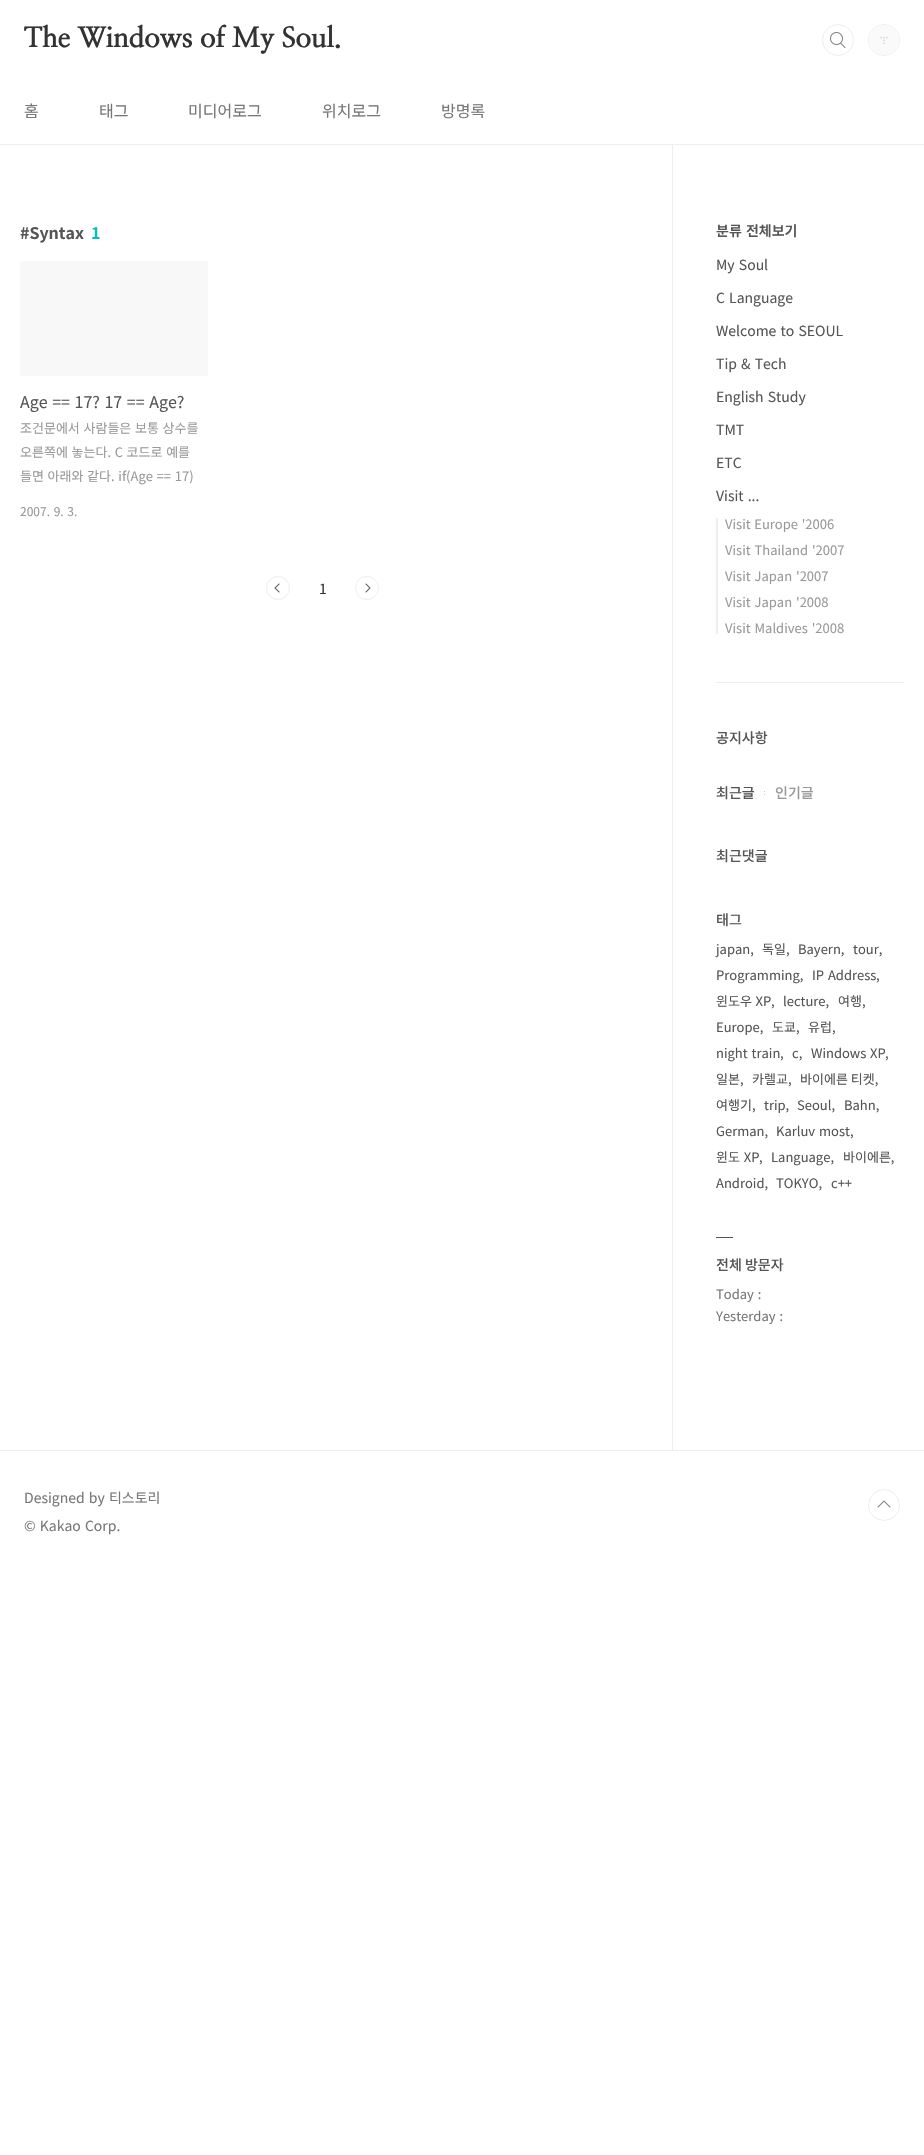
void draw(SkCanvas* c) {
SkPaint p;
p.setAntiAlias(true);
auto F=[&](const char* family, int weight, float size, bool italic = false){SkFontStyle style(weight, SkFontStyle::kNormal_Width,italic ? SkFontStyle::kItalic_Slant : SkFontStyle::kUpright_Slant);SkFont result(fontMgr->matchFamilyStyle(family, style), size);result.setSubpixel(true);return result;};
auto T=[&](const char* s, float x, float y, const SkFont& font){c->drawString(s, x, y, font, p);};
auto L=[&](const char* s, float x, float y, const SkFont& font, const SkPaint& ink, float letter, float word){std::vector<SkGlyphID> glyphs(font.countText(s, strlen(s), SkTextEncoding::kUTF8));std::vector<float> xs(glyphs.size());font.textToGlyphs(s, strlen(s), SkTextEncoding::kUTF8, glyphs);font.getXPos(glyphs, xs, x);float extra = 0;for (size_t i = 0; i < glyphs.size(); i++) {xs[i] += extra;extra += letter + word * (glyphs[i] == font.unicharToGlyph(' '));}c->drawTextBlob(SkTextBlob::MakeFromPosHGlyphs(glyphs, xs, y, font), 0, 0, ink);};
auto R=[&](float x, float y, float w, float h){c->drawRect(SkRect::MakeXYWH(x, y, w, h), p);};
auto I=[&](const char* path, float x, float y, float w, float h){auto image = SkImages::DeferredFromEncodedData(SkData::MakeFromFileName(path));c->drawImageRect(image, SkRect::MakeXYWH(x, y, w, h), SkSamplingOptions());};
c->clear(0xffffffff);
p.setColor(0xffeeeeee);
R(0,144,924,1);
auto f1 = F("NanumMyeongjo",800,28);
p.setColor(0xff333333);
L("The Windows of My Soul.",24,47,f1,p,-.2,0);
p.setStroke(true);
p.setStrokeWidth(1);
p.setColor(0xffeeeeee);
c->drawCircle(838,40,14.5,p);
p.setStroke(false);
p.setColor(0xffffffff);
c->drawCircle(838,40,16,p);
I("1.png",830,32,16,16);
p.setStroke(true);
p.setColor(0xffeeeeee);
c->drawCircle(838,40,15.5,p);
c->drawCircle(884,40,15.5,p);
I("2.png",869,25,30,30);
auto f2 = F("Noto Sans KR",400,16);
p.setStroke(false);
p.setColor(0xff777777);
T("홈",24,117,f2);
T("태그",99,117,f2);
T("미디어로그",188,117,f2);
T("위치로그",322,117,f2);
T("방명록",441,117,f2);
auto f3 = F("Noto Sans KR",700,16);
p.setColor(0xff555555);
T("#Syntax",20,239,f3);
p.setColor(0xff04beb8);
T("1",91,239,f3);
p.setColor(0xfff8f8f8);
R(20,261,188,115);
p.setColor(0xff555555);
L("Age == 17? 17 == Age?",20,408,f2,p,0,1);
auto f4 = F("Noto Sans KR",400,13);
p.setColor(0xff999999);
L("조건문에서 사람들은 보통 상수를",20,433,f4,p,0,.75);
L("오른쪽에 놓는다. C 코드로 예를",20,457,f4,p,0,.75);
L("들면 아래와 같다. if(Age == 17)",20,481,f4,p,0,.75);
auto f5 = F("Noto Sans KR",400,12);
L("2007. 9. 3.",20,516,f5,p,0,1);
I("3.png",274,583,6,10);
p.setStroke(true);
p.setColor(0xffeeeeee);
c->drawCircle(278,588,11.5,p);
auto f6 = F("Noto Sans KR",400,14);
p.setStroke(false);
p.setColor(0xff333333);
T("1",319,594,f6);
I("4.png",365,583,6,10);
p.setStroke(true);
p.setColor(0xffeeeeee);
c->drawCircle(367,588,11.5,p);
p.setStroke(false);
R(672,145,1,1305);
auto f7 = F("Noto Sans KR",600,14);
p.setColor(0xff555555);
L("분류 전체보기",716,236,f7,p,0,1);
L("My Soul",716,270,f6,p,0,1);
L("C Language",716,303,f6,p,0,1);
L("Welcome to SEOUL",716,336,f6,p,0,1);
L("Tip & Tech",716,369,f6,p,0,1);
L("English Study",716,402,f6,p,0,1);
T("TMT",716,435,f6);
T("ETC",716,468,f6);
L("Visit ...",716,501,f6,p,0,1);
p.setColor(0xffeeeeee);
R(716,518,2,116);
p.setColor(0xff999999);
L("Visit Europe '2006",725,529,f4,p,0,.75);
L("Visit Thailand '2007",725,555,f4,p,0,1);
L("Visit Japan '2007",725,581,f4,p,0,1);
L("Visit Japan '2008",725,607,f4,p,0,1);
L("Visit Maldives '2008",725,633,f4,p,0,1);
p.setColor(0xffeeeeee);
R(716,682,188,1);
auto f8 = F("Noto Sans KR",500,14);
p.setColor(0xff555555);
T("공지사항",716,743,f8);
T("최근글",716,798,f8);
I("5.png",764,791,1,4);
p.setColor(0xff999999);
T("인기글",775,798,f8);
p.setColor(0xff555555);
T("최근댓글",716,861,f8);
T("태그",716,925,f8);
T("japan,",716,954,f4);
T("독일,",762,954,f4);
T("Bayern,",798,954,f4);
T("tour,",853,954,f4);
T("Programming,",716,980,f4);
L("IP Address",812,980,f4,p,0,1);
T(",",876,980,f4);
L("윈도우 XP",716,1006,f4,p,0,.75);
T(",",771,1006,f4);
T("lecture,",783,1006,f4);
T("여행,",838,1006,f4);
T("Europe,",716,1032,f4);
T("도쿄,",772,1032,f4);
T("유럽,",808,1032,f4);
L("night train",716,1058,f4,p,0,1);
T(",",780,1058,f4);
T("c,",792,1058,f4);
L("Windows XP",811,1058,f4,p,0,.75);
T(",",885,1058,f4);
T("일본,",716,1084,f4);
T("카렐교,",752,1084,f4);
T("바이에른 티켓,",800,1084,f4);
T("여행기,",716,1110,f4);
T("trip,",764,1110,f4);
T("Seoul,",797,1110,f4);
T("Bahn,",844,1110,f4);
T("German,",716,1136,f4);
L("Karluv most",776,1136,f4,p,0,1);
T(",",850,1136,f4);
L("윈도 XP",716,1162,f4,p,0,1);
T(",",759,1162,f4);
T("Language,",771,1162,f4);
T("바이에른,",843,1162,f4);
T("Android,",716,1188,f4);
T("TOKYO,",776,1188,f4);
T("c++",831,1188,f4);
R(716,1237,17,1);
T("전체 방문자",716,1270,f8);
p.setColor(0xff777777);
L("Today :",716,1299,f4,p,0,1);
L("Yesterday :",716,1321,f4,p,0,1);
p.setColor(0xffeeeeee);
R(0,1450,924,1);
p.setColor(0xff777777);
L("Designed by 티스토리",24,1503,f6,p,0,1);
I("6.png",877,1500,14,8);
p.setStroke(true);
p.setColor(0xffeeeeee);
c->drawCircle(884,1505,15.5,p);
p.setStroke(false);
p.setColor(0xff777777);
L("© Kakao Corp.",24,1531,f6,p,0,1);
}
